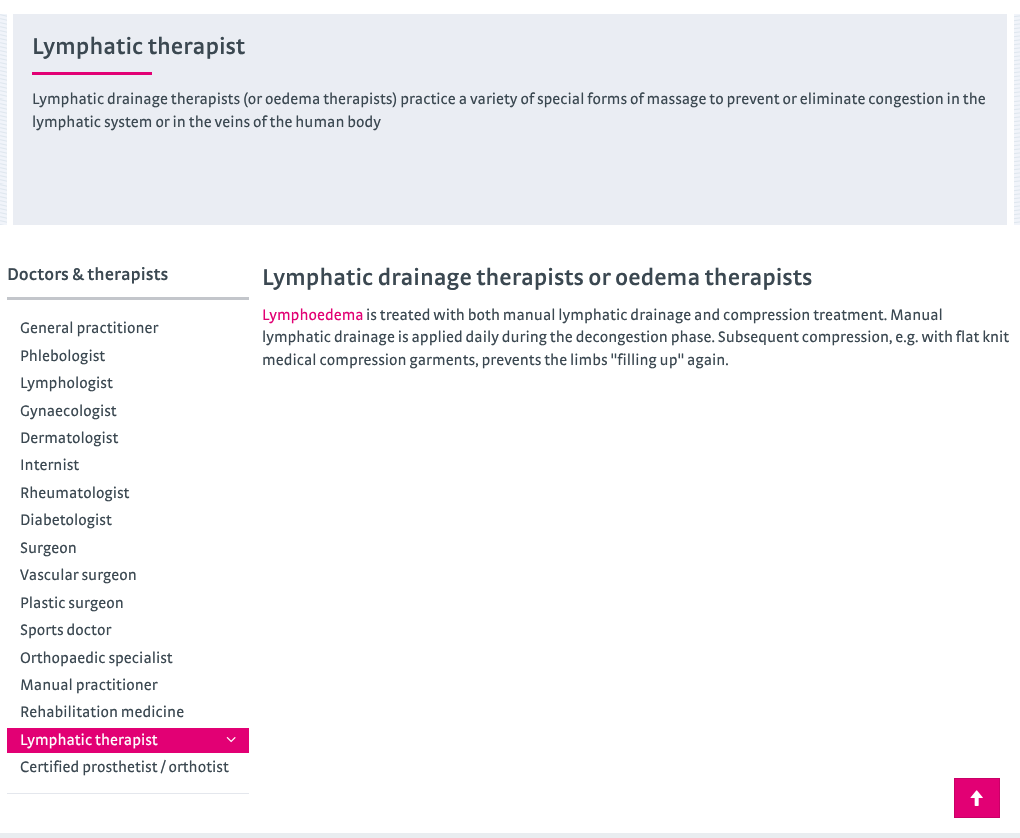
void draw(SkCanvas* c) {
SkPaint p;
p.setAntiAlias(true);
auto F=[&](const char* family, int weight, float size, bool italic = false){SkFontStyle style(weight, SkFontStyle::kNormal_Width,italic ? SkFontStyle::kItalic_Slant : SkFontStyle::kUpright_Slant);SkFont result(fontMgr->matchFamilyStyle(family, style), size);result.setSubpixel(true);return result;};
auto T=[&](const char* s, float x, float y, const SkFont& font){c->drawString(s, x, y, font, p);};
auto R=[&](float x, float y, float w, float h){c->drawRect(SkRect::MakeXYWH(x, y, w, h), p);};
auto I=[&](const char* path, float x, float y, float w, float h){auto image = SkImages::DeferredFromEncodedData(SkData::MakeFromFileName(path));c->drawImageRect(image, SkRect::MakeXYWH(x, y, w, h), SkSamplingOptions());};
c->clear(0xffffffff);
I("1.png",0,14,1020,211);
p.setColor(0xffffffff);
R(7,14,1007,211);
p.setColor(0xffeaedf3);
R(13,14,994,211);
auto f1 = F("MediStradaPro",600,24);
p.setColor(0xff3b4851);
T("Lymphatic therapist",32,54,f1);
p.setColor(0xffe20074);
R(32,72,120,3);
auto f2 = F("MediStradaPro",400,16);
p.setColor(0xff3b4851);
T("Lymphatic drainage therapists (or oedema therapists) practice a variety of special forms of massage to prevent or eliminate congestion in the",32,104,f2);
T("lymphatic system or in the veins of the human body",32,127,f2);
p.setColor(0xffe4e7ed);
R(7,793,242,1);
p.setColor(0xffc3c6cb);
R(7,297,242,3);
auto f3 = F("MediStradaPro",600,18);
p.setColor(0xff3b4851);
T("Doctors & therapists",7,280,f3);
T("General practitioner",20,333,f2);
T("Phlebologist",20,361,f2);
T("Lymphologist",20,388,f2);
T("Gynaecologist",20,416,f2);
T("Dermatologist",20,443,f2);
T("Internist",20,470,f2);
T("Rheumatologist",20,498,f2);
T("Diabetologist",20,525,f2);
T("Surgeon",20,553,f2);
T("Vascular surgeon",20,580,f2);
T("Plastic surgeon",20,608,f2);
T("Sports doctor",20,635,f2);
T("Orthopaedic specialist",20,663,f2);
T("Manual practitioner",20,690,f2);
T("Rehabilitation medicine",20,717,f2);
p.setColor(0xffe20074);
R(7,728,242,25);
p.setColor(0xffffffff);
T("Lymphatic therapist",20,745,f2);
I("2.png",226,737,10,6);
p.setColor(0xff3b4851);
T("Certified prosthetist / orthotist",20,772,f2);
T("Lymphatic drainage therapists or oedema therapists",262,285,f1);
p.setColor(0xffe20074);
T("Lymphoedema",262,320,f2);
p.setColor(0xff3b4851);
T("is treated with both manual lymphatic drainage and compression treatment. Manual",366,320,f2);
T("lymphatic drainage is applied daily during the decongestion phase. Subsequent compression, e.g. with flat knit",262,342,f2);
T("medical compression garments, prevents the limbs \"filling up\" again.",262,365,f2);
p.setColor(0xffe20074);
c->drawRect(SkRect::MakeXYWH(954.5,778.5,45,39),p);
p.setStroke(true);
p.setStrokeWidth(1);
p.setColor(0xffc90067);
c->drawRect(SkRect::MakeXYWH(954.5,778.5,45,39),p);
I("3.png",970,790,13,16);
p.setStroke(false);
p.setColor(0xffe9edf0);
R(0,833,1020,5);
}
